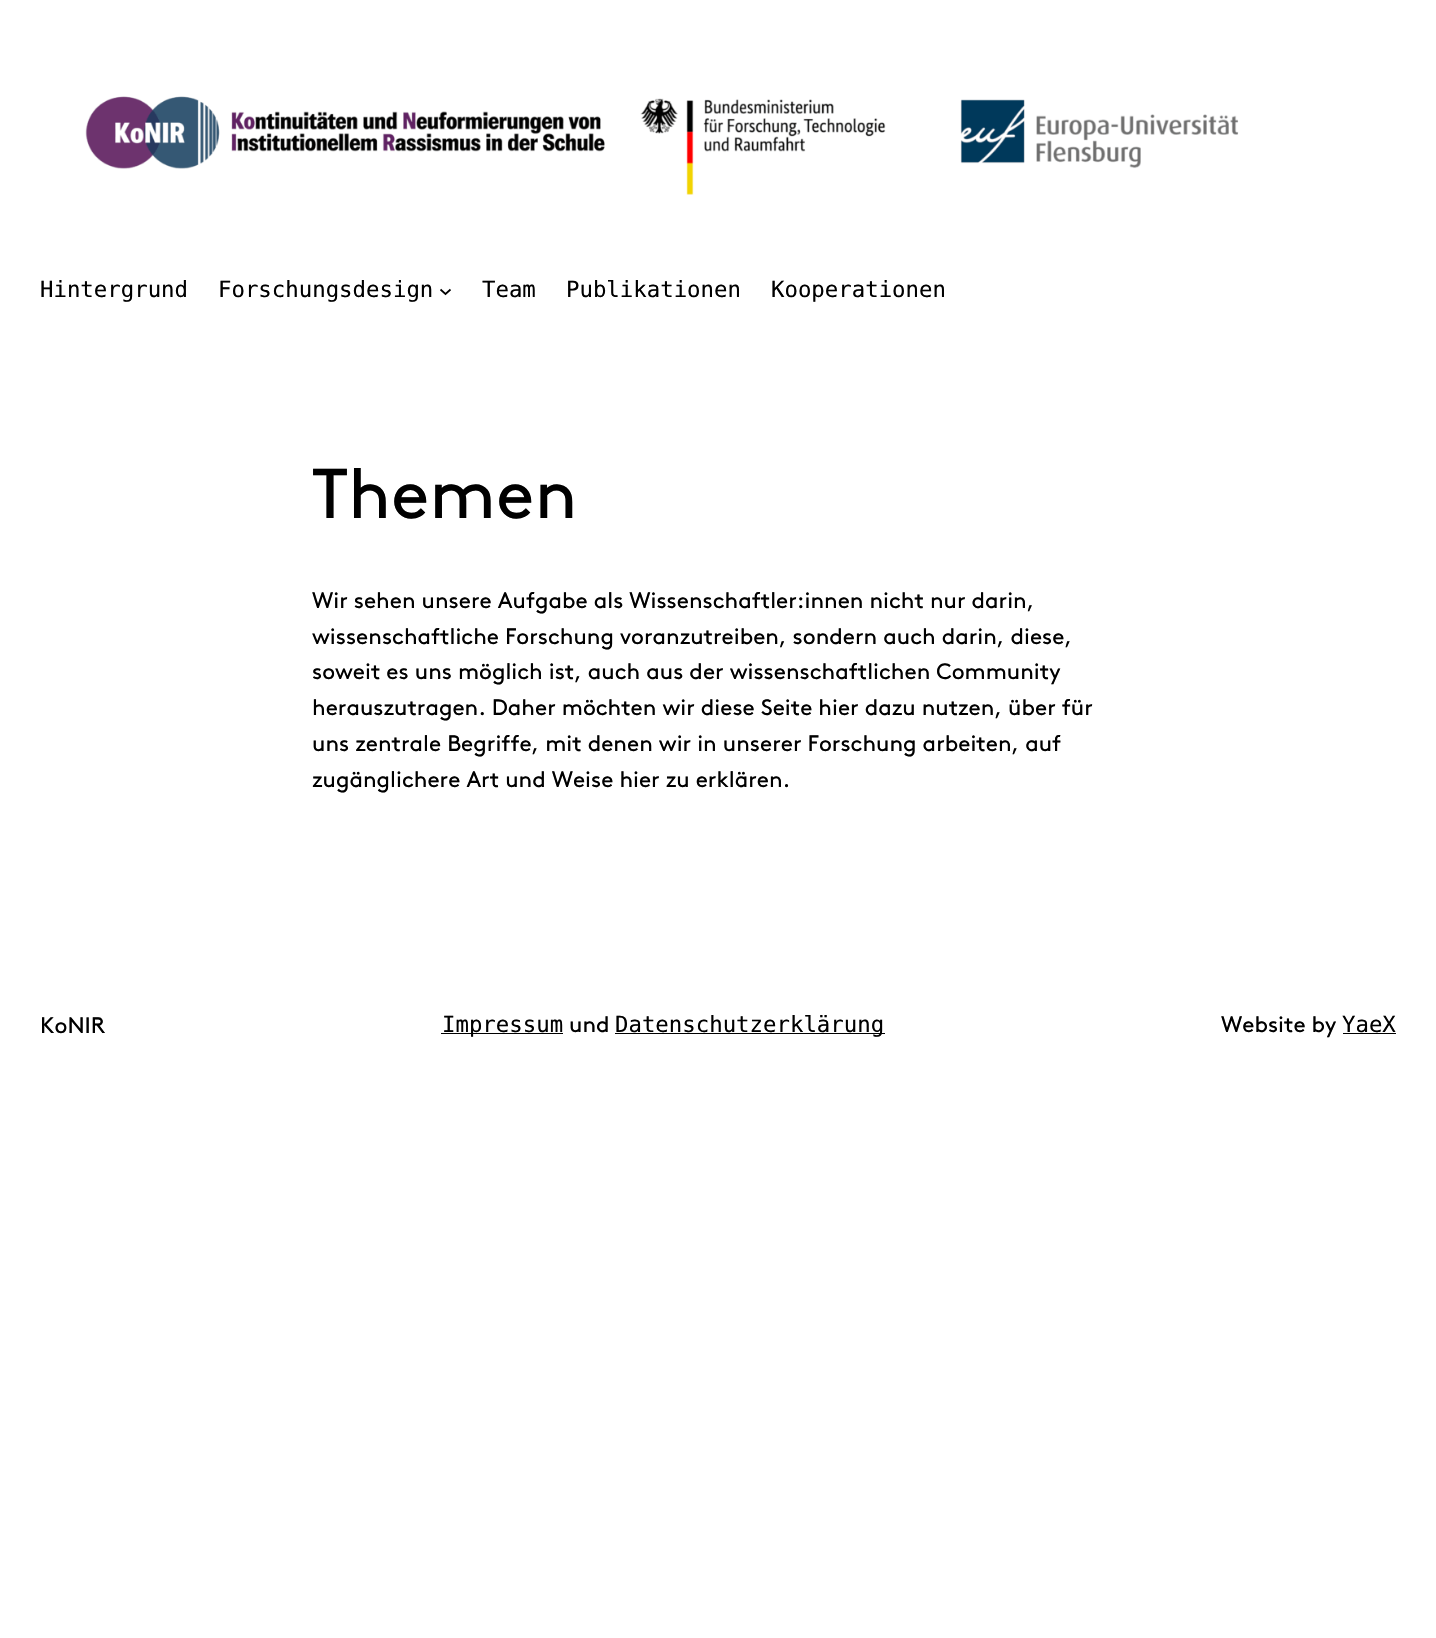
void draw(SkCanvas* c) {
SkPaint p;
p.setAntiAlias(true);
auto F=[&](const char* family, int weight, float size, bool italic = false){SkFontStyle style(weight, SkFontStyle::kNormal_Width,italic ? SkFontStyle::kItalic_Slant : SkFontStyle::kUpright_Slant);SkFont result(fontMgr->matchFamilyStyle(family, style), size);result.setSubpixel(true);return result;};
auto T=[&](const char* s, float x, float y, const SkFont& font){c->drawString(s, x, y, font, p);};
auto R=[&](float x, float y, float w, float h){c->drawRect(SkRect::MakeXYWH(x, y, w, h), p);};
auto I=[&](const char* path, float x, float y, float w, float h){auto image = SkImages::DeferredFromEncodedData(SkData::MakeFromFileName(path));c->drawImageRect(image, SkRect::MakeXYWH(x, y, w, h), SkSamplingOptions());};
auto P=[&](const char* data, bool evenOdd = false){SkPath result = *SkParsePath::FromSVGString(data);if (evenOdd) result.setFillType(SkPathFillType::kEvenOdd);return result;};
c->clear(0xffffffff);
I("1.png",85,96,1154,99);
auto f1 = F("DejaVu Sans Mono",400,22.35);
p.setColor(0xff000000);
T("Hintergrund",40,297,f1);
T("Forschungsdesign",218,297,f1);
p.setStroke(true);
p.setStrokeWidth(1.7);
c->drawPath(P("M440.5 289.5l5 4.5l5-4.5"),p);
p.setStroke(false);
T("Team",482,297,f1);
T("Publikationen",566,297,f1);
T("Kooperationen",771,297,f1);
auto f2 = F("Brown",400,70.5);
T("Themen",312,518,f2);
auto f3 = F("Brown",400,22.35);
T("Wir sehen unsere Aufgabe als Wissenschaftler:innen nicht nur darin,",312,608,f3);
T("wissenschaftliche Forschung voranzutreiben, sondern auch darin, diese,",312,644,f3);
T("soweit es uns möglich ist, auch aus der wissenschaftlichen Community",312,679,f3);
T("herauszutragen. Daher möchten wir diese Seite hier dazu nutzen, über für",312,715,f3);
T("uns zentrale Begriffe, mit denen wir in unserer Forschung arbeiten, auf",312,751,f3);
T("zugänglichere Art und Weise hier zu erklären.",312,787,f3);
T("KoNIR",40,1033,f3);
R(441,1033,122,1);
T("Impressum",442,1032,f1);
T("und",569,1032,f3);
R(615,1033,270,1);
T("Datenschutzerklärung",615,1032,f1);
T("Website by",1221,1032,f3);
T("YaeX",1342,1032,f1);
R(1343,1033,53,1);
}
